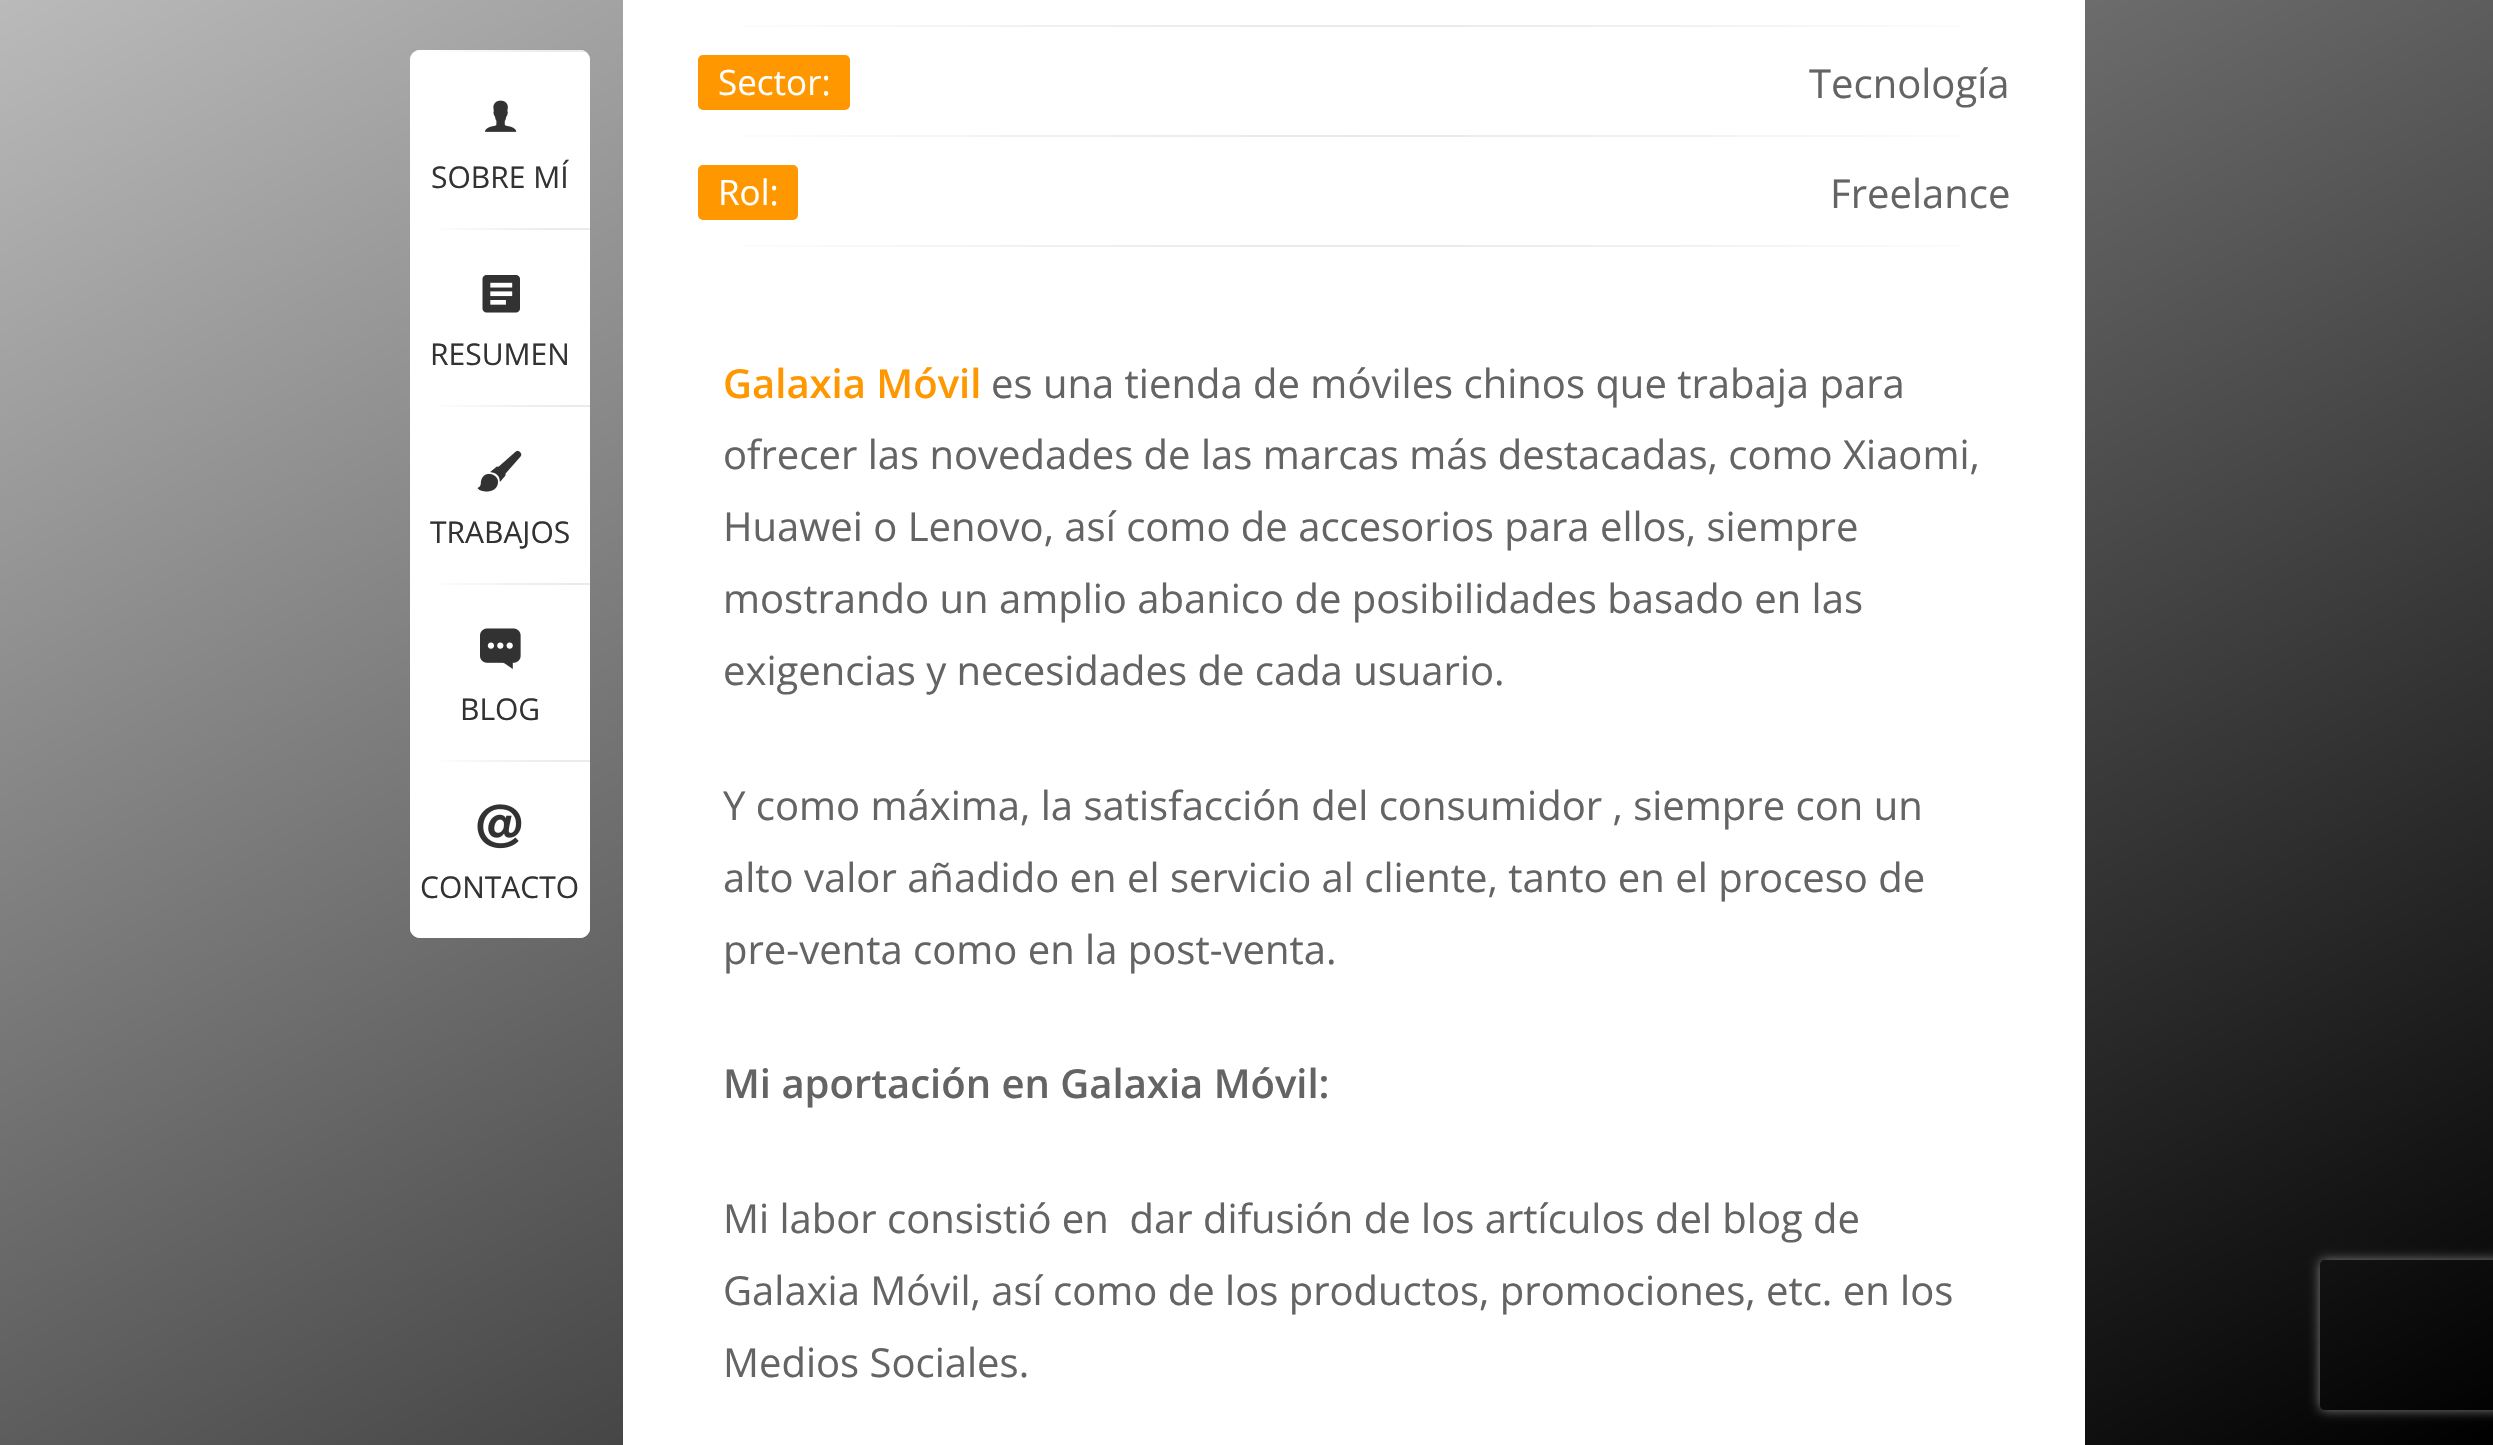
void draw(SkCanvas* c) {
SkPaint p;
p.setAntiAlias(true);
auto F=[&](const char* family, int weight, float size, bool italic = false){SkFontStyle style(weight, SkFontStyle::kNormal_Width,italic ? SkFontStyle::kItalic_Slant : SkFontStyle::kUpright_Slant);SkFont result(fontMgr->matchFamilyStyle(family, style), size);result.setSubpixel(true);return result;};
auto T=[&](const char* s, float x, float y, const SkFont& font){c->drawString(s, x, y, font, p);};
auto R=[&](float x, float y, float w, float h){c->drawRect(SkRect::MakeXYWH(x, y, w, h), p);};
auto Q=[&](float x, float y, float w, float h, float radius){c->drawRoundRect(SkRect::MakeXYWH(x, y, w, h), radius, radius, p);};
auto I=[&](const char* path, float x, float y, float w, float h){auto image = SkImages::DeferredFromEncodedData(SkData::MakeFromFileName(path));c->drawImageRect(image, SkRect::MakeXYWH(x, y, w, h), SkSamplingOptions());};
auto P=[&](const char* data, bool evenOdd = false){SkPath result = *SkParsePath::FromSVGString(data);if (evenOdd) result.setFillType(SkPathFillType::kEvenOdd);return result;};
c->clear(0xffffffff);
{
const SkColor colors[] = {0xffbababa,0xff000000};
const float stops[] = {0,1};
const SkPoint ends[] = {{621,-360}, {1874,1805}};
p.setShader(SkGradientShader::MakeLinear(ends, colors, stops, 2, SkTileMode::kClamp));
p.setAlpha(255);
}
R(0,0,2493,1445);
p.setShader(nullptr);
p.setColor(0xffffffff);
Q(410,50,180,888,10);
c->drawPath(P("M420 50h160c5.5 0 10 4.5 10 10v168h-180v-168c0-5.5 4.5-10 10-10z"),p);
c->save();
c->clipPath(P("M420 50h160c5.5 0 10 4.5 10 10v168h-180v-168c0-5.5 4.5-10 10-10z"),true);
{
const SkColor colors[] = {0xffdddddd,0x00dddddd};
const float stops[] = {0,.7};
SkMatrix m = SkMatrix::Translate(590,51).preScale(255,1.8);
p.setShader(SkGradientShader::MakeRadial({0, 0}, 1, colors, stops, 2, SkTileMode::kClamp, 0, &m));
p.setAlpha(255);
}
R(430,50,160,2);
c->restore();
I("1.png",485,100,32,32);
auto f1 = F("Open Sans",400,30);
p.setShader(nullptr);
p.setColor(0xff323232);
T("SOBRE MÍ",431,188,f1);
{
const SkColor colors[] = {0xffdddddd,0xffffffff};
const float stops[] = {0,.7};
SkMatrix m = SkMatrix::Translate(590,229).preScale(255,1.8);
p.setShader(SkGradientShader::MakeRadial({0, 0}, 1, colors, stops, 2, SkTileMode::kClamp, 0, &m));
p.setAlpha(255);
}
R(441,228,149,2);
I("2.png",482,275,38,38);
p.setShader(nullptr);
p.setColor(0xff323232);
T("RESUMEN",430,365,f1);
{
const SkColor colors[] = {0xffdddddd,0xffffffff};
const float stops[] = {0,.7};
SkMatrix m = SkMatrix::Translate(590,406).preScale(255,1.8);
p.setShader(SkGradientShader::MakeRadial({0, 0}, 1, colors, stops, 2, SkTileMode::kClamp, 0, &m));
p.setAlpha(255);
}
R(441,405,149,2);
I("3.png",477,450,45,42);
p.setShader(nullptr);
p.setColor(0xff323232);
T("TRABAJOS",430,543,f1);
{
const SkColor colors[] = {0xffdddddd,0xffffffff};
const float stops[] = {0,.7};
SkMatrix m = SkMatrix::Translate(590,584).preScale(255,1.8);
p.setShader(SkGradientShader::MakeRadial({0, 0}, 1, colors, stops, 2, SkTileMode::kClamp, 0, &m));
p.setAlpha(255);
}
R(441,583,149,2);
I("4.png",480,628,41,41);
p.setShader(nullptr);
p.setColor(0xff323232);
T("BLOG",460,720,f1);
p.setColor(0xffffffff);
c->drawPath(P("M410 760h180v168c0 5.5-4.5 10-10 10h-160c-5.5 0-10-4.5-10-10z"),p);
{
const SkColor colors[] = {0xffdddddd,0xffffffff};
const float stops[] = {0,.7};
SkMatrix m = SkMatrix::Translate(590,761).preScale(255,1.8);
p.setShader(SkGradientShader::MakeRadial({0, 0}, 1, colors, stops, 2, SkTileMode::kClamp, 0, &m));
p.setAlpha(255);
}
R(441,760,149,2);
I("5.png",477,804,45,45);
p.setShader(nullptr);
p.setColor(0xff323232);
T("CONTACTO",420,898,f1);
p.setColor(0xffffffff);
R(623,0,1462,1445);
{
const SkColor colors[] = {0xffdddddd,0xffffffff};
const float stops[] = {0,.7};
SkMatrix m = SkMatrix::Translate(1354,26).preScale(1034,1.8);
p.setShader(SkGradientShader::MakeRadial({0, 0}, 1, colors, stops, 2, SkTileMode::kClamp, 0, &m));
p.setAlpha(255);
}
R(744,25,1220,2);
p.setShader(nullptr);
p.setColor(0xffff9800);
Q(698,55,152,55,5);
auto f2 = F("Open Sans",400,35);
p.setColor(0xfffefefe);
T("Sector:",718,95,f2);
auto f3 = F("Open Sans",400,40);
p.setColor(0xff646464);
T("Tecnología",1809,98,f3);
{
const SkColor colors[] = {0xffdddddd,0xffffffff};
const float stops[] = {0,.7};
SkMatrix m = SkMatrix::Translate(1354,136).preScale(1034,1.8);
p.setShader(SkGradientShader::MakeRadial({0, 0}, 1, colors, stops, 2, SkTileMode::kClamp, 0, &m));
p.setAlpha(255);
}
R(744,135,1220,2);
p.setShader(nullptr);
p.setColor(0xffff9800);
Q(698,165,100,55,5);
p.setColor(0xfffefefe);
T("Rol:",718,205,f2);
p.setColor(0xff646464);
T("Freelance",1830,208,f3);
{
const SkColor colors[] = {0xffdddddd,0xffffffff};
const float stops[] = {0,.7};
SkMatrix m = SkMatrix::Translate(1354,246).preScale(1034,1.8);
p.setShader(SkGradientShader::MakeRadial({0, 0}, 1, colors, stops, 2, SkTileMode::kClamp, 0, &m));
p.setAlpha(255);
}
R(744,245,1220,2);
auto f4 = F("Open Sans",600,40);
p.setShader(nullptr);
p.setColor(0xffff9800);
T("Galaxia Móvil",723,398,f4);
p.setColor(0xff646464);
T("es una tienda de móviles chinos que trabaja para",991,398,f3);
T("ofrecer las novedades de las marcas más destacadas, como Xiaomi,",723,469,f3);
T("Huawei o Lenovo, así como de accesorios para ellos, siempre",723,541,f3);
T("mostrando un amplio abanico de posibilidades basado en las",723,613,f3);
T("exigencias y necesidades de cada usuario.",723,685,f3);
T("Y como máxima, la satisfacción del consumidor , siempre con un",723,820,f3);
T("alto valor añadido en el servicio al cliente, tanto en el proceso de",723,892,f3);
T("pre-venta como en la post-venta.",723,964,f3);
T("Mi aportación en Galaxia Móvil:",723,1098,f4);
T("Mi labor consistió en  dar difusión de los artículos del blog de",723,1233,f3);
T("Galaxia Móvil, así como de los productos, promociones, etc. en los",723,1305,f3);
T("Medios Sociales.",723,1377,f3);
c->save();
c->clipPath(P("M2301 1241h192v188h-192zm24 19h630c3 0 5 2 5 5v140c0 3-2 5-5 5h-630c-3 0-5-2-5-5v-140c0-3 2-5 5-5z",true),true);
p.setColor(0xff808080);
p.setMaskFilter(SkMaskFilter::MakeBlur(kNormal_SkBlurStyle, 6));
c->drawRoundRect(SkRect::MakeXYWH(2320,1260,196,150),5,5,p);
p.setMaskFilter(nullptr);
c->restore();
}
